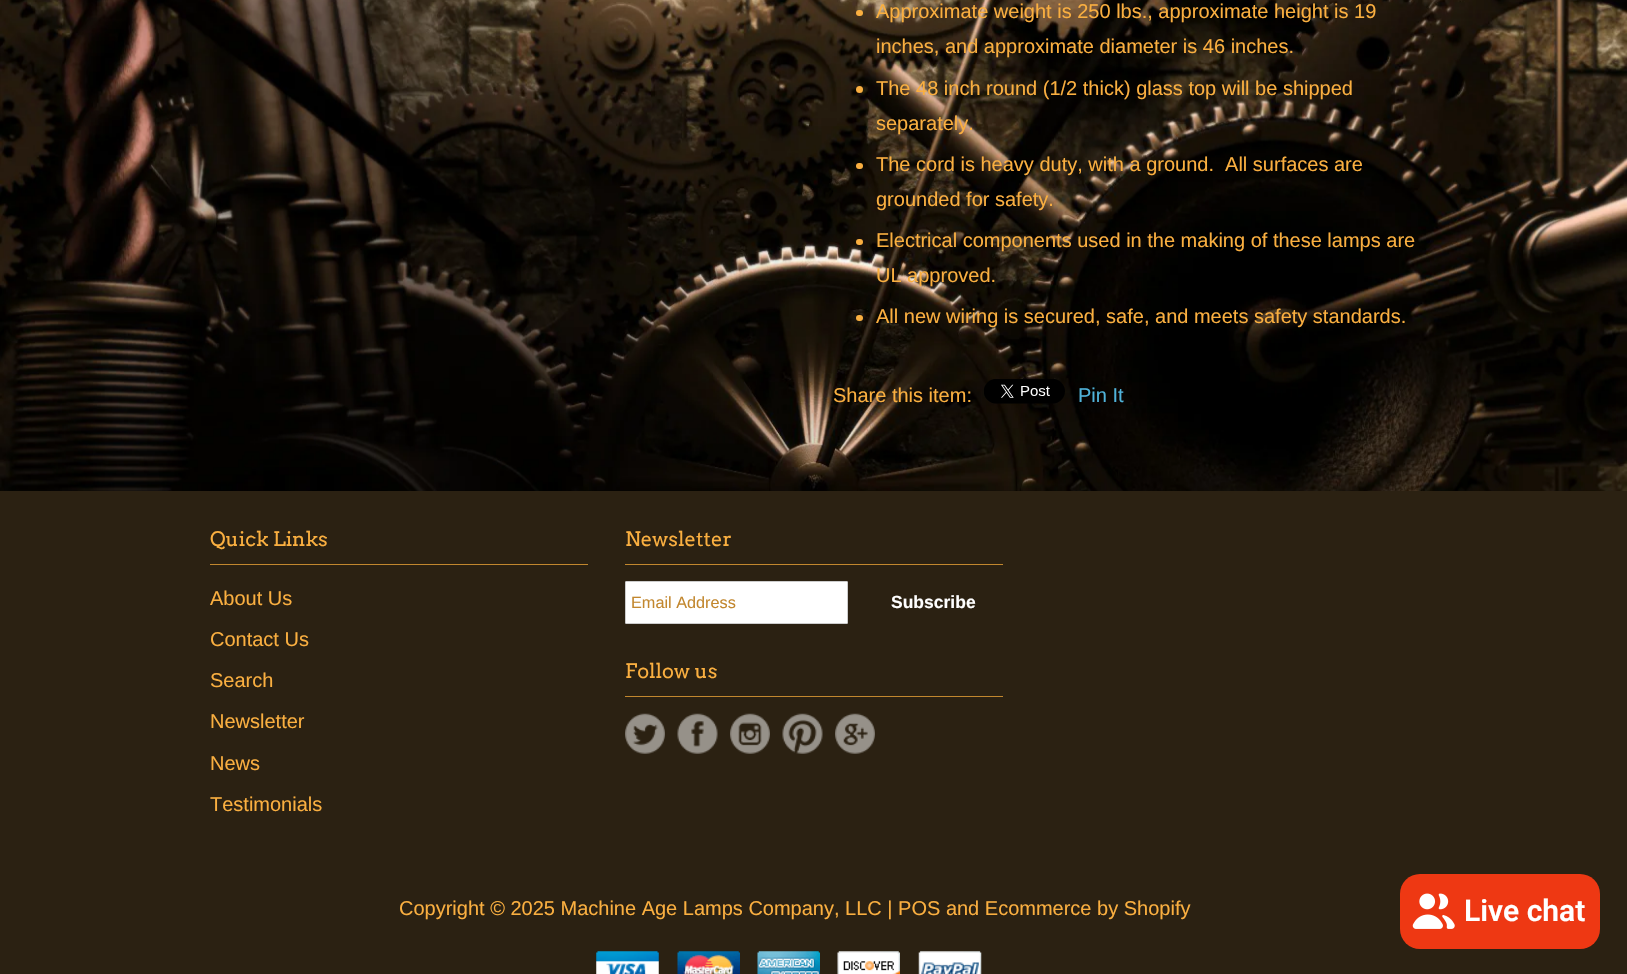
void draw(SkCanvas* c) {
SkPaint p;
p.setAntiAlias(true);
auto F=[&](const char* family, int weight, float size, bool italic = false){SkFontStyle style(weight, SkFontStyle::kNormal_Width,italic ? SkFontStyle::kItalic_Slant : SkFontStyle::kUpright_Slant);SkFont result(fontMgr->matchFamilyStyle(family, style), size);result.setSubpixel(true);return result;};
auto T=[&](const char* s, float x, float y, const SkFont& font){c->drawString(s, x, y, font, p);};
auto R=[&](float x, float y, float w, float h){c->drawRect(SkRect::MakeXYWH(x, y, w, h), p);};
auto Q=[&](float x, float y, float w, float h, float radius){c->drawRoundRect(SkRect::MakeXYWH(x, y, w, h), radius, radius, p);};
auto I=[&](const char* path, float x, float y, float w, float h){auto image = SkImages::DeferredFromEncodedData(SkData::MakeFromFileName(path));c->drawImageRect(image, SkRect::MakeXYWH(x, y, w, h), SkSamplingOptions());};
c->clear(0xffffffff);
I("1.png",0,0,1627,491);
p.setColor(0xfffaaf40);
Q(856,10,7,6,3);
auto f1 = F("Liberation Sans",400,20);
T("Approximate weight is 250 lbs., approximate height is 19",876,18,f1);
T("inches, and approximate diameter is 46 inches.",876,53,f1);
c->drawCircle(859.5,89.5,3.5,p);
T("The 48 inch round (1/2 thick) glass top will be shipped",876,95,f1);
T("separately.",876,130,f1);
Q(856,163,7,6,3);
T("The cord is heavy duty, with a ground.  All surfaces are",876,171,f1);
T("grounded for safety.",876,206,f1);
Q(856,239,7,6,3);
T("Electrical components used in the making of these lamps are",876,247,f1);
T("UL approved.",876,282,f1);
Q(856,315,7,6,3);
T("All new wiring is secured, safe, and meets safety standards.",876,323,f1);
T("Share this item:",833,402,f1);
I("2.png",984,379,81,25);
p.setColor(0xff50b3da);
T("Pin It",1078,402,f1);
p.setColor(0xff2b2112);
R(0,491,1627,483);
p.setColor(0xffc2872e);
R(210,564,378,1);
auto f2 = F("Arvo",400,20);
p.setColor(0xfffaaf40);
T("Quick Links",210,546,f2);
T("About Us",210,605,f1);
T("Contact Us",210,646,f1);
T("Search",210,687,f1);
T("Newsletter",210,728,f1);
T("News",210,770,f1);
T("Testimonials",210,811,f1);
p.setColor(0xffc2872e);
R(625,564,378,1);
p.setColor(0xfffaaf40);
T("Newsletter",625,546,f2);
p.setColor(0xffffffff);
c->drawRoundRect(SkRect::MakeXYWH(625.5,581.5,222,42),.5,.5,p);
p.setStroke(true);
p.setStrokeWidth(1);
p.setColor(0xffcccccc);
c->drawRoundRect(SkRect::MakeXYWH(625.5,581.5,222,42),.5,.5,p);
auto f3 = F("Liberation Sans",400,16.25);
p.setStroke(false);
p.setColor(0xffc2872e);
T("Email Address",631,608,f3);
auto f4 = F("Liberation Sans",700,17.5);
p.setColor(0xffffffff);
T("Subscribe",891,608,f4);
p.setColor(0xffc2872e);
R(625,696,378,1);
p.setColor(0xfffaaf40);
T("Follow us",625,678,f2);
I("3.png",625,713,40,41);
I("4.png",677,713,41,41);
I("5.png",730,713,40,41);
I("6.png",782,713,41,41);
I("7.png",835,713,40,41);
T("Copyright © 2025 Machine Age Lamps Company, LLC | POS and Ecommerce by Shopify",399,915,f1);
I("8.png",596,951,63,23);
I("9.png",677,951,63,23);
I("10.png",757,951,63,23);
I("11.png",837,951,63,23);
I("12.png",918,951,64,23);
p.setColor(0xffee3813);
Q(1400,874,200,75,20);
I("13.png",1412,893,43,36);
auto f5 = F("Roboto",600,30);
p.setColor(0xffffffff);
T("Live chat",1464,921,f5);
}
